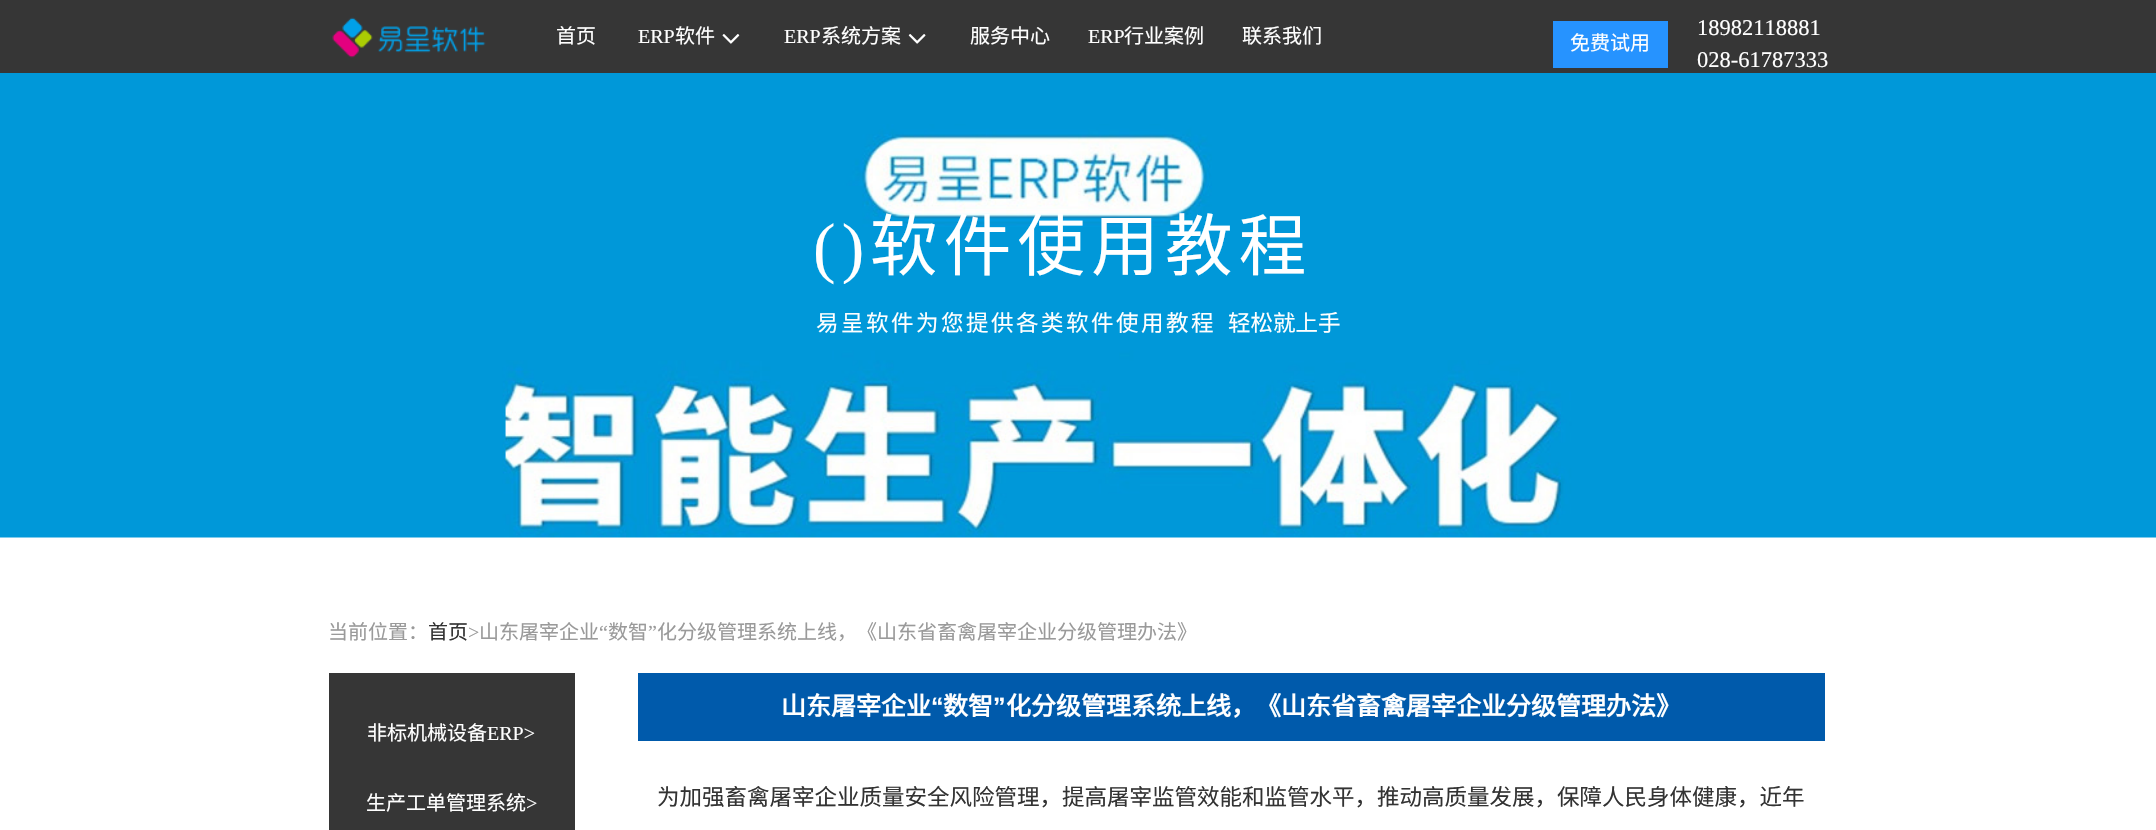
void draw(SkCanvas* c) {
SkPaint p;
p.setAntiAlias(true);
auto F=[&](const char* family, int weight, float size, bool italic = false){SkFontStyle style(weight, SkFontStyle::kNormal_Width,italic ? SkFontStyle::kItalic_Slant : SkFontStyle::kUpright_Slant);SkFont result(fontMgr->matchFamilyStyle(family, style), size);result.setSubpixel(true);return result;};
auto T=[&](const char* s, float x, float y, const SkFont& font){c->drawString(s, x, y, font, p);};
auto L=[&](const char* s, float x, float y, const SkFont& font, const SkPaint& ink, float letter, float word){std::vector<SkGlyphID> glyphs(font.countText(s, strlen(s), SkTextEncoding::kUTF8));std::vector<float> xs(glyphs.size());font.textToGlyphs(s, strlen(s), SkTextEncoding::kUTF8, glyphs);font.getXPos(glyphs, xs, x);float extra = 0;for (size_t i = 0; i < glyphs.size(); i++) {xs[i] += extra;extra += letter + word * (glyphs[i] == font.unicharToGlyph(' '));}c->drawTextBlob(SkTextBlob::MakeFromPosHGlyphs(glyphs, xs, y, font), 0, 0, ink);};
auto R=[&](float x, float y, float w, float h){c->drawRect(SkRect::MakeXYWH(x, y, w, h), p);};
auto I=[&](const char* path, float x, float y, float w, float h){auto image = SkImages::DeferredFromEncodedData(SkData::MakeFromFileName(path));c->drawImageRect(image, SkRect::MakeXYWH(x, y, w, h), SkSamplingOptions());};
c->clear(0xffffffff);
p.setColor(0xff363636);
R(0,0,2156,73);
I("1.png",332,17,154,41);
auto f1 = F("Noto Sans CJK SC",400,20);
p.setColor(0xffffffff);
T("首页",556,43,f1);
auto f2 = F("Liberation Serif",400,20);
T("ERP",638,43,f2);
T("软件",675,43,f1);
I("2.png",722,34,18,10);
T("ERP",784,43,f2);
T("系统方案",821,43,f1);
I("3.png",908,34,18,10);
T("服务中心",970,43,f1);
T("ERP",1088,43,f2);
T("行业案例",1124,43,f1);
T("联系我们",1242,43,f1);
p.setColor(0xff2693ff);
R(1553,21,115,47);
p.setColor(0xffffffff);
T("免费试用",1570,50,f1);
auto f3 = F("Liberation Serif",400,22.5);
T("18982118881",1697,35,f3);
T("028-61787333",1697,67,f3);
I("4.png",0,73,2156,465);
auto f4 = F("Liberation Serif",400,67.5);
L("()",813,270,f4,p,6.25,0);
auto f5 = F("Noto Sans CJK SC",400,67.5);
L("软件使用教程",870,270,f5,p,6.25,0);
auto f6 = F("Noto Sans CJK SC",400,22.5);
L("易呈软件为您提供各类软件使用教程",816,331,f6,p,2.5,0);
T("轻松就上手",1228,331,f6);
p.setColor(0xff9a9a9a);
T("当前位置：",328,639,f1);
p.setColor(0xff333333);
T("首页",428,639,f1);
p.setColor(0xff9a9a9a);
T(">",468,639,f2);
T("山东屠宰企业",479,639,f1);
T("“",599,639,f2);
T("数智",608,639,f1);
T("”",648,639,f2);
T("化分级管理系统上线，《山东省畜禽屠宰企业分级管理办法》",657,639,f1);
p.setColor(0xff363636);
R(329,673,246,157);
p.setColor(0xffffffff);
T("非标机械设备",367,740,f1);
T("ERP>",487,740,f2);
T("生产工单管理系统",366,810,f1);
T(">",526,810,f2);
p.setColor(0xff005aab);
R(638,673,1187,68);
auto f7 = F("Noto Sans CJK SC",700,25);
p.setColor(0xffffffff);
T("山东屠宰企业",781,715,f7);
auto f8 = F("Liberation Sans",700,25);
T("“",931,715,f8);
T("数智",943,715,f7);
T("”",993,715,f8);
T("化分级管理系统上线，《山东省畜禽屠宰企业分级管理办法》",1006,715,f7);
p.setColor(0xff333333);
T("为加强畜禽屠宰企业质量安全风险管理，提高屠宰监管效能和监管水平，推动高质量发展，保障人民身体健康，近年",657,805,f6);
}
